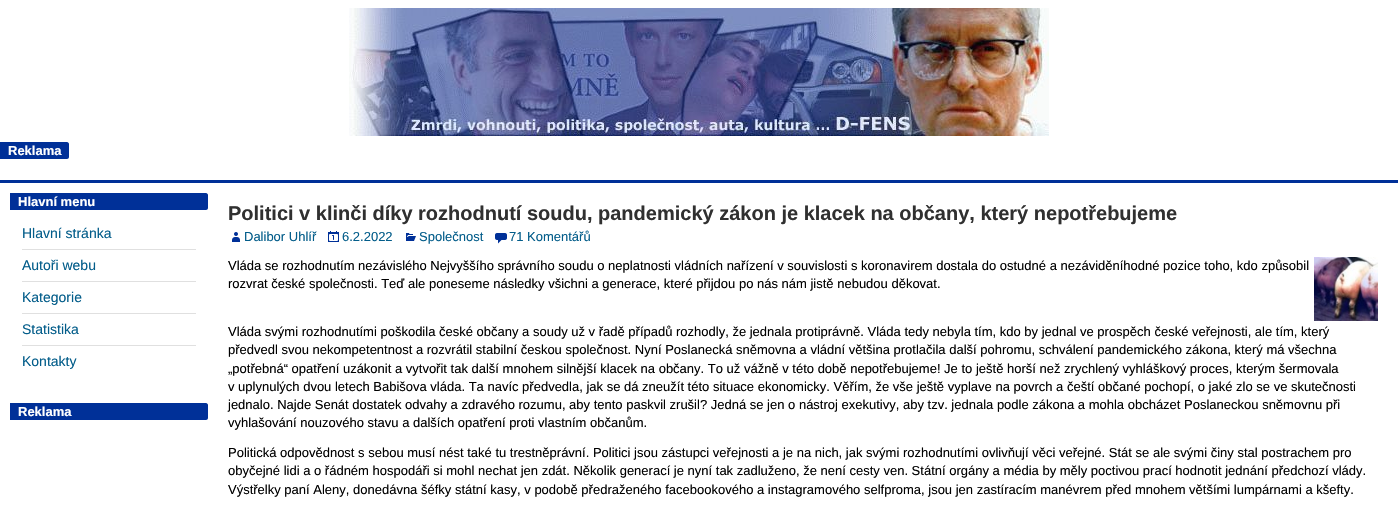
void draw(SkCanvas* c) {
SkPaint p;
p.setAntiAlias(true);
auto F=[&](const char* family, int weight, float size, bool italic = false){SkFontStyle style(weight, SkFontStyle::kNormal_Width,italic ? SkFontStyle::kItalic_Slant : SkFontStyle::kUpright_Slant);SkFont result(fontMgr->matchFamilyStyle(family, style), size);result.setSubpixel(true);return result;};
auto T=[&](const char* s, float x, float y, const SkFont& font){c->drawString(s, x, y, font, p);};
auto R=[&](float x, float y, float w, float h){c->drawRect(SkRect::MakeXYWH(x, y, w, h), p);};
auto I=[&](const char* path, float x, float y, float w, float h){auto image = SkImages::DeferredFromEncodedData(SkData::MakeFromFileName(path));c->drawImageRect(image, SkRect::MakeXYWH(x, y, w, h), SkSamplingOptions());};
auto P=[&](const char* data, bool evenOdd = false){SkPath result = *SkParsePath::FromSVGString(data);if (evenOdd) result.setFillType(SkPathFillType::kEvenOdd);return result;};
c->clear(0xffffffff);
p.setColor(0xff003098);
R(0,180,1398,3);
I("1.png",349,8,700,128);
c->drawPath(P("M0 142h67c1 0 2 1 2 2v13c0 1-1 2-2 2h-67z"),p);
auto f1 = F("Liberation Sans",700,13);
p.setColor(0xffffffff);
T("Reklama",8,155,f1);
p.setColor(0xff003098);
c->drawPath(P("M10 193h196c1 0 2 1 2 2v13c0 1-1 2-2 2h-196z"),p);
p.setColor(0xffffffff);
T("Hlavní menu",18,206,f1);
p.setColor(0xffe0e0e0);
R(22,249,174,1);
auto f2 = F("Liberation Sans",400,14);
p.setColor(0xff035d8a);
T("Hlavní stránka",22,238,f2);
p.setColor(0xffe0e0e0);
R(22,281,174,1);
p.setColor(0xff035d8a);
T("Autoři webu",22,270,f2);
p.setColor(0xffe0e0e0);
R(22,313,174,1);
p.setColor(0xff035d8a);
T("Kategorie",22,302,f2);
p.setColor(0xffe0e0e0);
R(22,345,174,1);
p.setColor(0xff035d8a);
T("Statistika",22,334,f2);
T("Kontakty",22,366,f2);
p.setColor(0xff003098);
c->drawPath(P("M10 403h196c1 0 2 1 2 2v13c0 1-1 2-2 2h-196z"),p);
p.setColor(0xffffffff);
T("Reklama",18,416,f1);
auto f3 = F("Liberation Sans",700,20);
p.setColor(0xff303030);
T("Politici v klinči díky rozhodnutí soudu, pandemický zákon je klacek na občany, který nepotřebujeme",228,220,f3);
I("2.png",232,232,8,10);
auto f4 = F("Liberation Sans",400,13);
p.setColor(0xff035d8a);
T("Dalibor Uhlíř",244,241,f4);
I("3.png",328,231,11,11);
T("6.2.2022",342,241,f4);
I("4.png",406,233,10,8);
T("Společnost",419,241,f4);
I("5.png",495,233,12,11);
T("71 Komentářů",509,241,f4);
p.setColor(0xff000000);
T("Vláda se rozhodnutím nezávislého Nejvyššího správního soudu o neplatnosti vládních nařízení v souvislosti s koronavirem dostala do ostudné a nezáviděníhodné pozice toho, kdo způsobil",228,270,f4);
T("rozvrat české společnosti. Teď ale poneseme následky všichni a generace, které přijdou po nás nám jistě nebudou děkovat.",228,288,f4);
I("6.png",1314,257,64,64);
T("Vláda svými rozhodnutími poškodila české občany a soudy už v řadě případů rozhodly, že jednala protiprávně. Vláda tedy nebyla tím, kdo by jednal ve prospěch české veřejnosti, ale tím, který",228,336,f4);
T("předvedl svou nekompetentnost a rozvrátil stabilní českou společnost. Nyní Poslanecká sněmovna a vládní většina protlačila další pohromu, schválení pandemického zákona, který má všechna",228,354,f4);
T("„potřebná“ opatření uzákonit a vytvořit tak další mnohem silnější klacek na občany. To už vážně v této době nepotřebujeme! Je to ještě horší než zrychlený vyhláškový proces, kterým šermovala",228,373,f4);
T("v uplynulých dvou letech Babišova vláda. Ta navíc předvedla, jak se dá zneužít této situace ekonomicky. Věřím, že vše ještě vyplave na povrch a čeští občané pochopí, o jaké zlo se ve skutečnosti",228,391,f4);
T("jednalo. Najde Senát dostatek odvahy a zdravého rozumu, aby tento paskvil zrušil? Jedná se jen o nástroj exekutivy, aby tzv. jednala podle zákona a mohla obcházet Poslaneckou sněmovnu při",228,409,f4);
T("vyhlašování nouzového stavu a dalších opatření proti vlastním občanům.",228,427,f4);
T("Politická odpovědnost s sebou musí nést také tu trestněprávní. Politici jsou zástupci veřejnosti a je na nich, jak svými rozhodnutími ovlivňují věci veřejné. Stát se ale svými činy stal postrachem pro",228,457,f4);
T("obyčejné lidi a o řádném hospodáři si mohl nechat jen zdát. Několik generací je nyní tak zadluženo, že není cesty ven. Státní orgány a média by měly poctivou prací hodnotit jednání předchozí vlády.",228,475,f4);
T("Výstřelky paní Aleny, donedávna šéfky státní kasy, v podobě předraženého facebookového a instagramového selfproma, jsou jen zastíracím manévrem před mnohem většími lumpárnami a kšefty.",228,494,f4);
}
